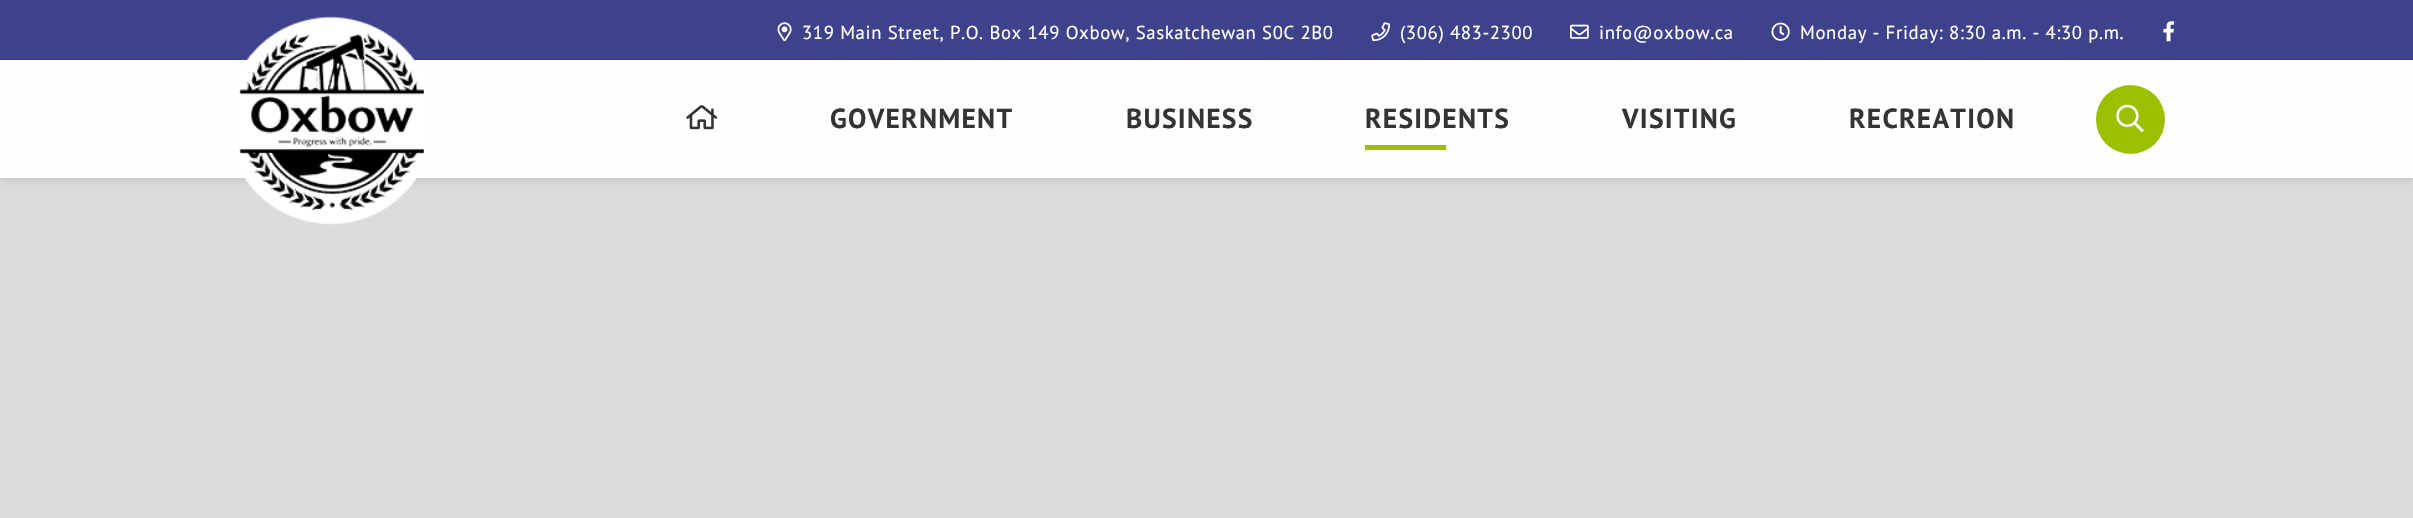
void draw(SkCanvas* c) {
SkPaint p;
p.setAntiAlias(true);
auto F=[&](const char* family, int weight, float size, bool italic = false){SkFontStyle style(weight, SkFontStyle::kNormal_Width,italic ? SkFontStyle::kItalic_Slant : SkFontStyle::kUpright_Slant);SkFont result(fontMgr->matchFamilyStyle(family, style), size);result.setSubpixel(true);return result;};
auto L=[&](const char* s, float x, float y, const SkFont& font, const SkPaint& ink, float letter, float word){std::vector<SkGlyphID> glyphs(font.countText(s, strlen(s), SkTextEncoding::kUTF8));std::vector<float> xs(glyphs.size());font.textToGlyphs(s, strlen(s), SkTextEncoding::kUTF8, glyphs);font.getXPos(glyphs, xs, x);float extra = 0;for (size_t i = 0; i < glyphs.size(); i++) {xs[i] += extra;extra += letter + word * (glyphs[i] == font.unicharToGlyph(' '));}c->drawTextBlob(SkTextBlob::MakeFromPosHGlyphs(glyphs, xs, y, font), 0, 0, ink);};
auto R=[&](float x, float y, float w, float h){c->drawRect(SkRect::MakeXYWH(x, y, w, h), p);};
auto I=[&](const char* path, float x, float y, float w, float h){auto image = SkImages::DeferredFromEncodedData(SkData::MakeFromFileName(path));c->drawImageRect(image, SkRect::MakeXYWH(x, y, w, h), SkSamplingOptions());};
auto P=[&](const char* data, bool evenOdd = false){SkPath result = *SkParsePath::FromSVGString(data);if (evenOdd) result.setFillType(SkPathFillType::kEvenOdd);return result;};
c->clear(0xffdcdcdc);
p.setColor(0xff3e428b);
R(0,0,2413,60);
I("1.png",777,22,15,20);
auto f1 = F("PT Sans",400,18.75);
p.setColor(0xffffffff);
L("319 Main Street, P.O. Box 149 Oxbow, Saskatchewan S0C 2B0",802,39,f1,p,.62,0);
I("2.png",1371,22,19,20);
L("(306) 483-2300",1400,39,f1,p,.62,0);
I("3.png",1570,24,19,15);
L("info@oxbow.ca",1599,39,f1,p,.62,0);
I("4.png",1771,22,19,19);
L("Monday - Friday: 8:30 a.m. - 4:30 p.m.",1800,39,f1,p,.62,0);
I("5.png",2163,21,12,21);
c->save();
c->clipPath(P("M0 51h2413v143h-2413zm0 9h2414v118h-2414z",true),true);
p.setColor(0x1a000000);
p.setMaskFilter(SkMaskFilter::MakeBlur(kNormal_SkBlurStyle, 4));
c->drawRect(SkRect::MakeXYWH(0,64,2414,117),p);
p.setMaskFilter(nullptr);
c->restore();
p.setColor(0xf2ffffff);
R(0,60,2413,118);
I("6.png",239,16,185,209);
I("7.png",686,105,32,25);
auto f2 = F("PT Sans",700,27.5);
p.setColor(0xff343434);
L("GOVERNMENT",830,128,f2,p,1.25,0);
L("BUSINESS",1126,128,f2,p,1.25,0);
L("RESIDENTS",1365,128,f2,p,1.25,0);
p.setColor(0xff9cbf00);
R(1365,145,81,5);
p.setColor(0xff343434);
L("VISITING",1622,128,f2,p,1.25,0);
L("RECREATION",1849,128,f2,p,1.25,0);
p.setColor(0xff9cbf00);
c->drawCircle(2130.5,119.5,34.5,p);
I("8.png",2116,104,28,29);
}
